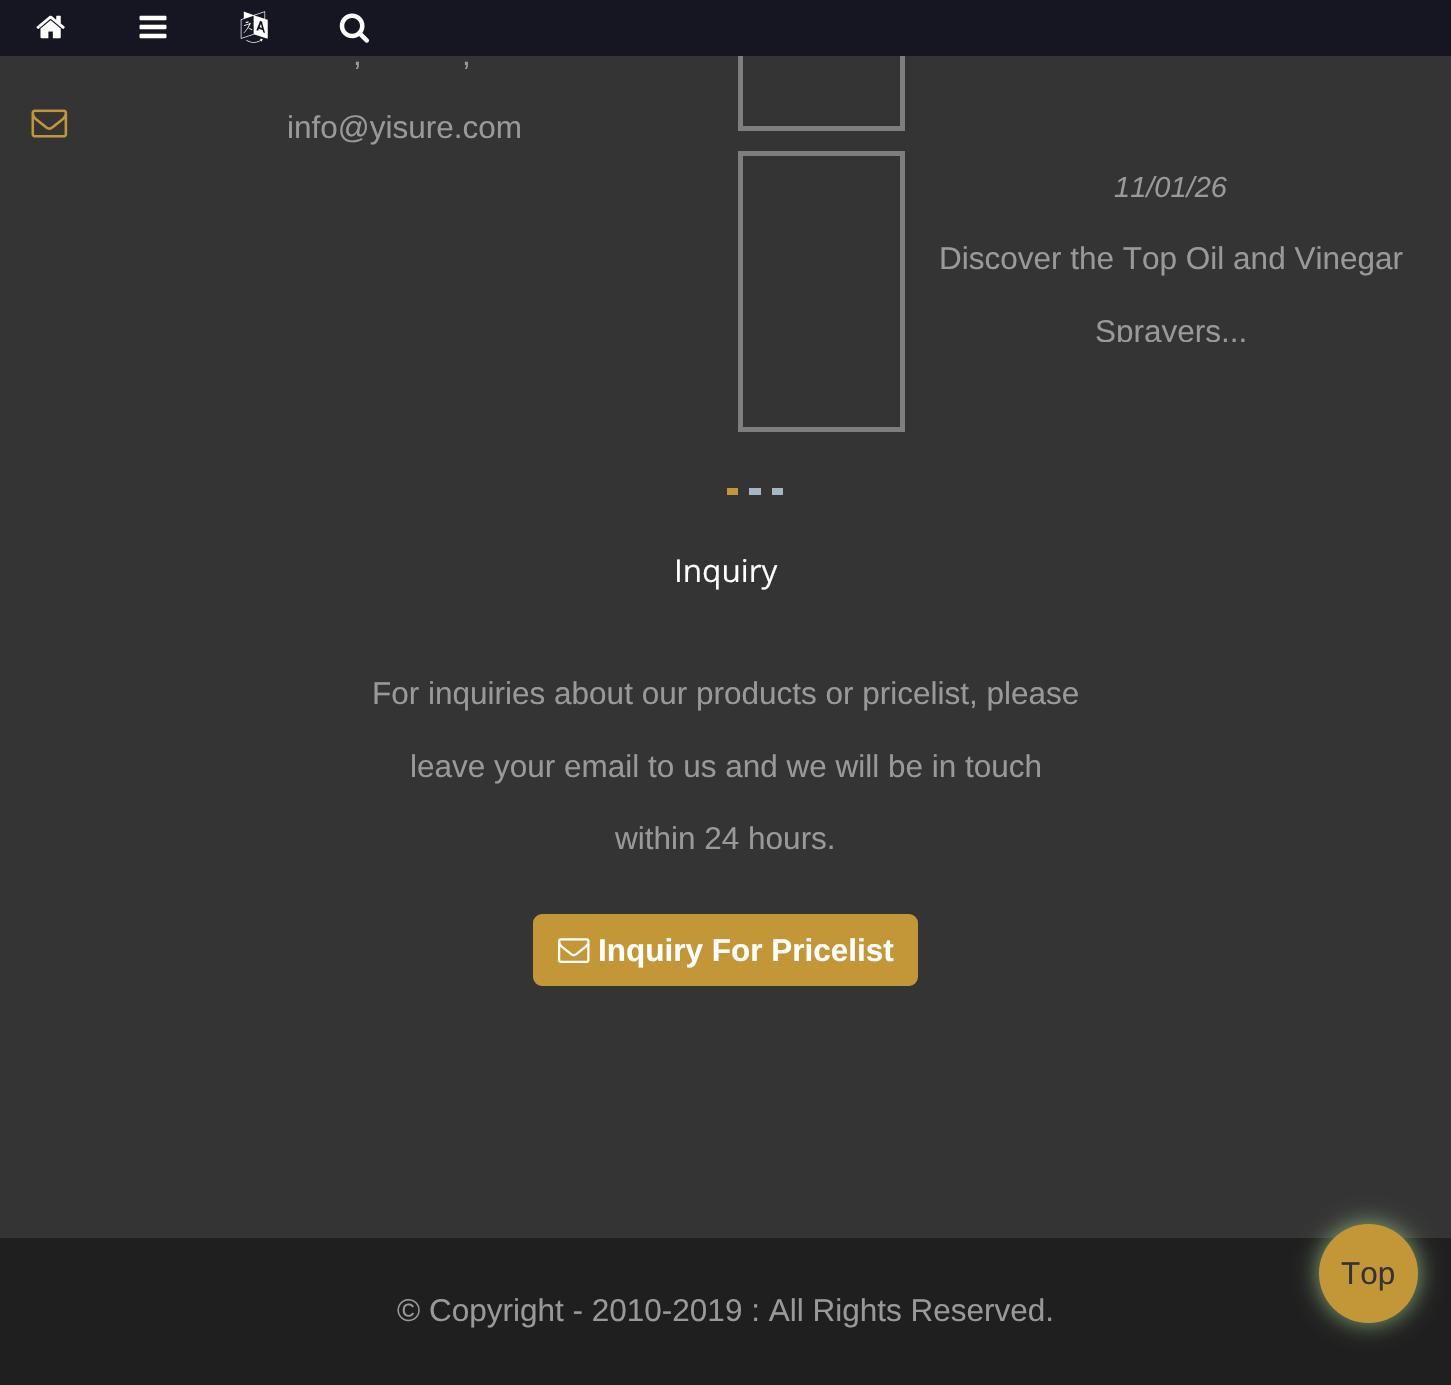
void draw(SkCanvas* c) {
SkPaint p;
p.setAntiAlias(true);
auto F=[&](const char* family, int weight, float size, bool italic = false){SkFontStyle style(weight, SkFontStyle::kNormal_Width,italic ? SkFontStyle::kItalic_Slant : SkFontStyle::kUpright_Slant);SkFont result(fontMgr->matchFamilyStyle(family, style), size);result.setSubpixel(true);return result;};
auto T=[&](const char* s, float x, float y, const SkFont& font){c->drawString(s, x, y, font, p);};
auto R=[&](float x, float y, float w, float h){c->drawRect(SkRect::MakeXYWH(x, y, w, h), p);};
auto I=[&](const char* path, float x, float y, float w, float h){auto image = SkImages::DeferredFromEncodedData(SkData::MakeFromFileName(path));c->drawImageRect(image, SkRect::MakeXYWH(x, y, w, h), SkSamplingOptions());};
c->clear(0xff343434);
p.setStroke(true);
p.setStrokeWidth(5);
p.setColor(0xff7e7e7e);
c->drawRect(SkRect::MakeXYWH(740.5,-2.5,162,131),p);
p.setStroke(false);
p.setColor(0xff161622);
R(0,0,1451,56);
I("1.png",36,15,29,24);
I("2.png",139,15,28,24);
I("3.png",240,11,28,32);
I("4.png",339,13,30,30);
auto f1 = F("Liberation Sans",400,31.5);
p.setColor(0xff999999);
T(",",353,65,f1);
T(",",462,65,f1);
I("5.png",31,109,37,29);
T("info@yisure.com",287,138,f1);
p.setStroke(true);
p.setColor(0xff7e7e7e);
c->drawRect(SkRect::MakeXYWH(740.5,153.5,162,276),p);
auto f2 = F("Liberation Sans",400,29,true);
p.setStroke(false);
p.setColor(0xff999999);
T("11/01/26",1114,197,f2);
T("Discover the Top Oil and Vinegar",939,269,f1);
c->save();
c->clipRect(SkRect::MakeXYWH(914,223,515,119));
T("Sprayers...",1095,342,f1);
c->restore();
p.setColor(0xffc39738);
R(727,488,11,7);
p.setColor(0xffa5b7c2);
R(749,488,12,7);
R(772,488,11,7);
auto f3 = F("Open Sans",400,31.5);
p.setColor(0xffffffff);
T("Inquiry",674,582,f3);
p.setColor(0xff999999);
T("For inquiries about our products or pricelist, please",372,704,f1);
T("leave your email to us and we will be in touch",410,777,f1);
T("within 24 hours.",615,849,f1);
p.setColor(0xffc39738);
c->drawRoundRect(SkRect::MakeXYWH(535.5,916.5,380,67),6.5,6.5,p);
p.setStroke(true);
c->drawRoundRect(SkRect::MakeXYWH(535.5,916.5,380,67),6.5,6.5,p);
I("6.png",558,938,32,25);
auto f4 = F("Liberation Sans",700,31.5);
p.setStroke(false);
p.setColor(0xffffffff);
T("Inquiry For Pricelist",598,961,f4);
p.setColor(0xff1f1f1f);
R(0,1238,1451,147);
p.setColor(0xff999999);
T("© Copyright - 2010-2019 : All Rights Reserved.",397,1321,f1);
p.setColor(0xcca3d08f);
p.setMaskFilter(SkMaskFilter::MakeBlur(kNormal_SkBlurStyle, 12));
c->drawRoundRect(SkRect::MakeXYWH(1319,1224,99,99),49.5,49.5,p);
p.setMaskFilter(nullptr);
p.setColor(0xffc39738);
c->drawCircle(1368.5,1273.5,49.5,p);
p.setColor(0xff333333);
T("Top",1341,1284,f1);
}
